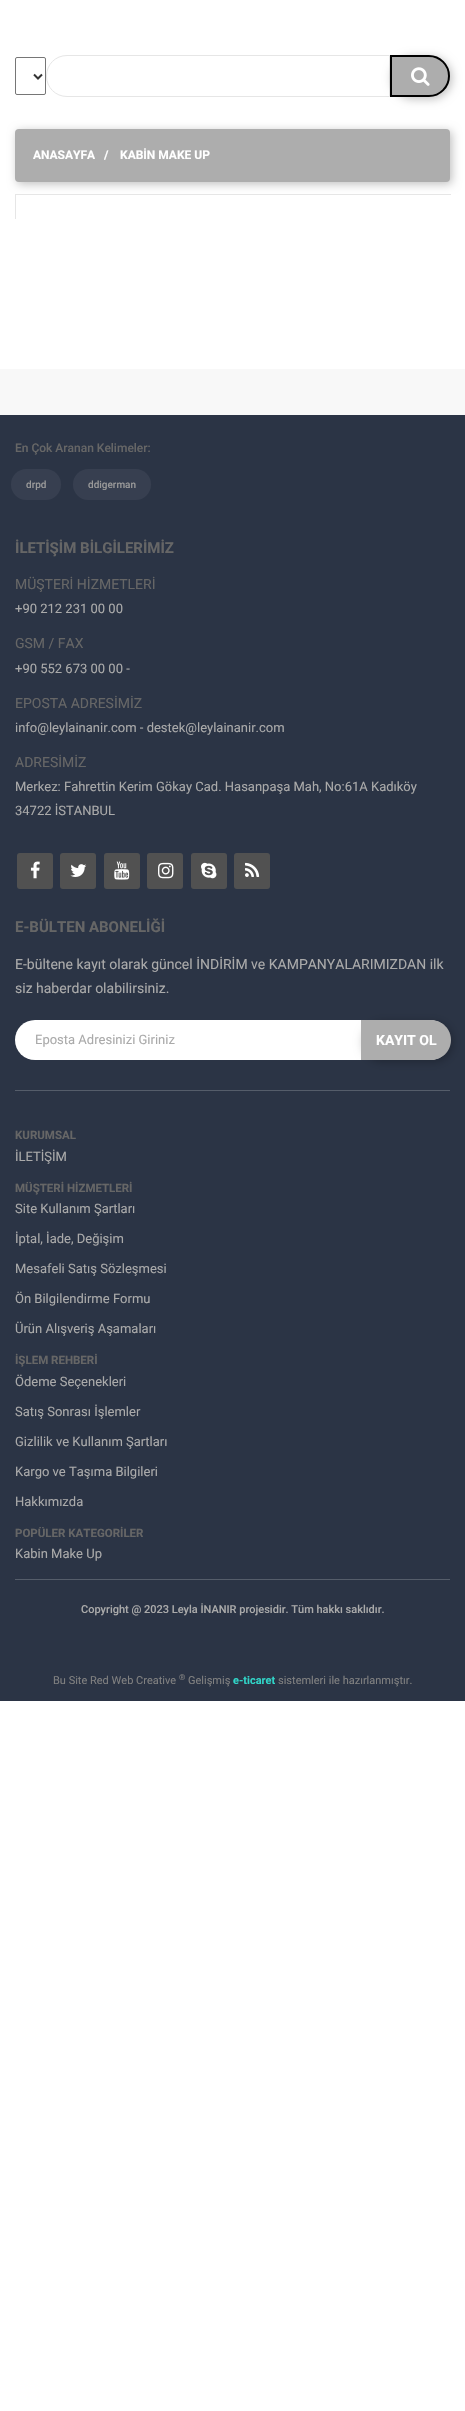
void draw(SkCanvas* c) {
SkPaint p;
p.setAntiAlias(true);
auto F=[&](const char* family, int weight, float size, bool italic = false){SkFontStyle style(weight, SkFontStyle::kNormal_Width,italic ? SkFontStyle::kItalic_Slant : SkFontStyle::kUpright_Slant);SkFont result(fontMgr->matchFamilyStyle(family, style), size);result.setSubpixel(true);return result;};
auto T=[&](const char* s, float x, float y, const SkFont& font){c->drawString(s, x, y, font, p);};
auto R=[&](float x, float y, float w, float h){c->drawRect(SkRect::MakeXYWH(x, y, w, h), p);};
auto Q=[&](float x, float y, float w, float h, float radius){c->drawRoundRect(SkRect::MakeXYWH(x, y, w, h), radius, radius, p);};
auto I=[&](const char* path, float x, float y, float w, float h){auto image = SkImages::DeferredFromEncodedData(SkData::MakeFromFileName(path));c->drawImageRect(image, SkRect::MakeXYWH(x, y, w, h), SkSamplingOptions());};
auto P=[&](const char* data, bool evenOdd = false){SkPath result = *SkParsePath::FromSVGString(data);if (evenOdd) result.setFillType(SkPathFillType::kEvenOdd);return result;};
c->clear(0xffffffff);
p.setStroke(true);
p.setStrokeWidth(1);
p.setColor(0xff767676);
c->drawRoundRect(SkRect::MakeXYWH(15.5,57.5,30,37),1.5,1.5,p);
p.setStrokeWidth(2);
p.setColor(0xff333333);
c->drawPath(P("M34 74.5l4 4l4-4"),p);
p.setStrokeWidth(1);
p.setColor(0xffe6e6e6);
c->drawPath(P("M67 55.5h322.5v41h-322.5c-11.5 0-20.5-9-20.5-20.5c0-11.5 9-20.5 20.5-20.5z"),p);
p.setStroke(false);
p.setColor(0x40000000);
p.setMaskFilter(SkMaskFilter::MakeBlur(kNormal_SkBlurStyle, 5));
c->drawRoundRect(SkRect::MakeXYWH(392,57,60,42),21,21,p);
p.setMaskFilter(nullptr);
p.setColor(0xffadadad);
c->drawPath(P("M391 56h38c11 0 20 9 20 20c0 11-9 20-20 20h-38z"),p);
p.setStroke(true);
p.setStrokeWidth(2);
p.setColor(0xff000000);
c->drawPath(P("M391 56h38c11 0 20 9 20 20c0 11-9 20-20 20h-38z"),p);
I("1.png",411,67,19,19);
p.setStroke(false);
p.setColor(0x40000000);
p.setMaskFilter(SkMaskFilter::MakeBlur(kNormal_SkBlurStyle, 5));
c->drawRoundRect(SkRect::MakeXYWH(17,131,435,53),4,4,p);
p.setMaskFilter(nullptr);
p.setColor(0xffadadad);
Q(15,129,435,53,4);
auto f1 = F("Roboto",700,12);
p.setColor(0xffffffff);
T("ANASAYFA",33,159,f1);
T("/",104,159,f1);
T("KABİN MAKE UP",120,159,f1);
p.setColor(0xffe6e6e6);
R(15,194,436,1);
R(15,194,1,25);
p.setColor(0xfff8f8f8);
R(0,369,465,46);
p.setColor(0xff2b3445);
R(0,415,465,1286);
auto f2 = F("Roboto",500,12);
p.setColor(0xff666666);
T("En Çok Aranan Kelimeler:",15,452,f2);
p.setColor(0xff373f50);
Q(11,469,50,31,15.5);
auto f3 = F("Roboto",500,10);
p.setColor(0xff999999);
T("drpd",26,488,f3);
p.setColor(0xff373f50);
Q(73,469,78,31,15.5);
p.setColor(0xff999999);
T("ddigerman",88,488,f3);
auto f4 = F("Roboto",700,15);
p.setColor(0xff666666);
T("İLETİŞİM BİLGİLERİMİZ",15,553,f4);
auto f5 = F("Roboto",400,14);
T("MÜŞTERİ HİZMETLERİ",15,589,f5);
auto f6 = F("Roboto",400,13);
p.setColor(0xffaaaaaa);
T("+90 212 231 00 00",15,613,f6);
p.setColor(0xff666666);
T("GSM / FAX",15,648,f5);
p.setColor(0xffaaaaaa);
T("+90 552 673 00 00 -",15,673,f6);
p.setColor(0xff666666);
T("EPOSTA ADRESİMİZ",15,708,f5);
p.setColor(0xffaaaaaa);
T("info@leylainanir.com - destek@leylainanir.com",15,732,f6);
p.setColor(0xff666666);
T("ADRESİMİZ",15,767,f5);
p.setColor(0xffaaaaaa);
T("Merkez: Fahrettin Kerim Gökay Cad. Hasanpaşa Mah, No:61A Kadıköy",15,791,f6);
T("34722 İSTANBUL",15,815,f6);
p.setColor(0xff515151);
Q(17,853,36,36,3);
I("2.png",30,861,10,18);
Q(60,853,36,36,3);
I("3.png",70,864,17,13);
Q(104,853,36,36,3);
I("4.png",114,861,16,19);
Q(147,853,36,36,3);
I("5.png",158,862,16,17);
Q(191,853,36,36,3);
I("6.png",201,862,16,17);
Q(234,853,36,36,3);
I("7.png",245,862,15,15);
p.setColor(0xff555d6a);
R(15,1090,435,1);
p.setColor(0xff666666);
T("E-BÜLTEN ABONELİĞİ",15,932,f4);
p.setColor(0xffaaaaaa);
T("E-bültene kayıt olarak güncel İNDİRİM ve KAMPANYALARIMIZDAN ilk",15,969,f5);
T("siz haberdar olabilirsiniz.",15,993,f5);
p.setColor(0xffffffff);
Q(15,1020,435,40,20);
p.setColor(0xffaaaaaa);
T("Eposta Adresinizi Giriniz",35,1044,f6);
p.setColor(0x40000000);
p.setMaskFilter(SkMaskFilter::MakeBlur(kNormal_SkBlurStyle, 5));
c->drawRoundRect(SkRect::MakeXYWH(363,1022,90,40),20,20,p);
p.setMaskFilter(nullptr);
p.setColor(0xffadadad);
c->drawPath(P("M361 1020h70c11 0 20 9 20 20c0 11-9 20-20 20h-70z"),p);
auto f7 = F("Roboto",700,14);
p.setColor(0xffffffff);
T("KAYIT OL",376,1045,f7);
auto f8 = F("Roboto",700,11.5);
p.setColor(0xff666666);
T("KURUMSAL",15,1139,f8);
p.setColor(0xffaaaaaa);
T("İLETİŞİM",15,1161,f6);
p.setColor(0xff666666);
T("MÜŞTERİ HİZMETLERİ",15,1192,f8);
p.setColor(0xffaaaaaa);
T("Site Kullanım Şartları",15,1213,f6);
T("İptal, İade, Değişim",15,1243,f6);
T("Mesafeli Satış Sözleşmesi",15,1273,f6);
T("Ön Bilgilendirme Formu",15,1303,f6);
T("Ürün Alışveriş Aşamaları",15,1333,f6);
p.setColor(0xff666666);
T("İŞLEM REHBERİ",15,1364,f8);
p.setColor(0xffaaaaaa);
T("Ödeme Seçenekleri",15,1386,f6);
T("Satış Sonrası İşlemler",15,1416,f6);
T("Gizlilik ve Kullanım Şartları",15,1446,f6);
T("Kargo ve Taşıma Bilgileri",15,1476,f6);
T("Hakkımızda",15,1506,f6);
p.setColor(0xff666666);
T("POPÜLER KATEGORİLER",15,1537,f8);
p.setColor(0xffaaaaaa);
T("Kabin Make Up",15,1558,f6);
p.setColor(0xff555d6a);
R(15,1579,435,1);
auto f9 = F("Roboto",500,11);
p.setColor(0xffaaaaaa);
T("Copyright @ 2023 Leyla İNANIR projesidir. Tüm hakkı saklıdır.",81,1613,f9);
auto f10 = F("Roboto",400,11);
p.setColor(0xff808080);
T("Bu Site Red Web Creative",53,1684,f10);
auto f11 = F("Roboto",400,8);
T("®",179,1680,f11);
T("Gelişmiş",188,1684,f10);
auto f12 = F("Roboto",700,11);
p.setColor(0xff30d5c8);
T("e-ticaret",233,1684,f12);
p.setColor(0xff808080);
T("sistemleri ile hazırlanmıştır.",278,1684,f10);
}
